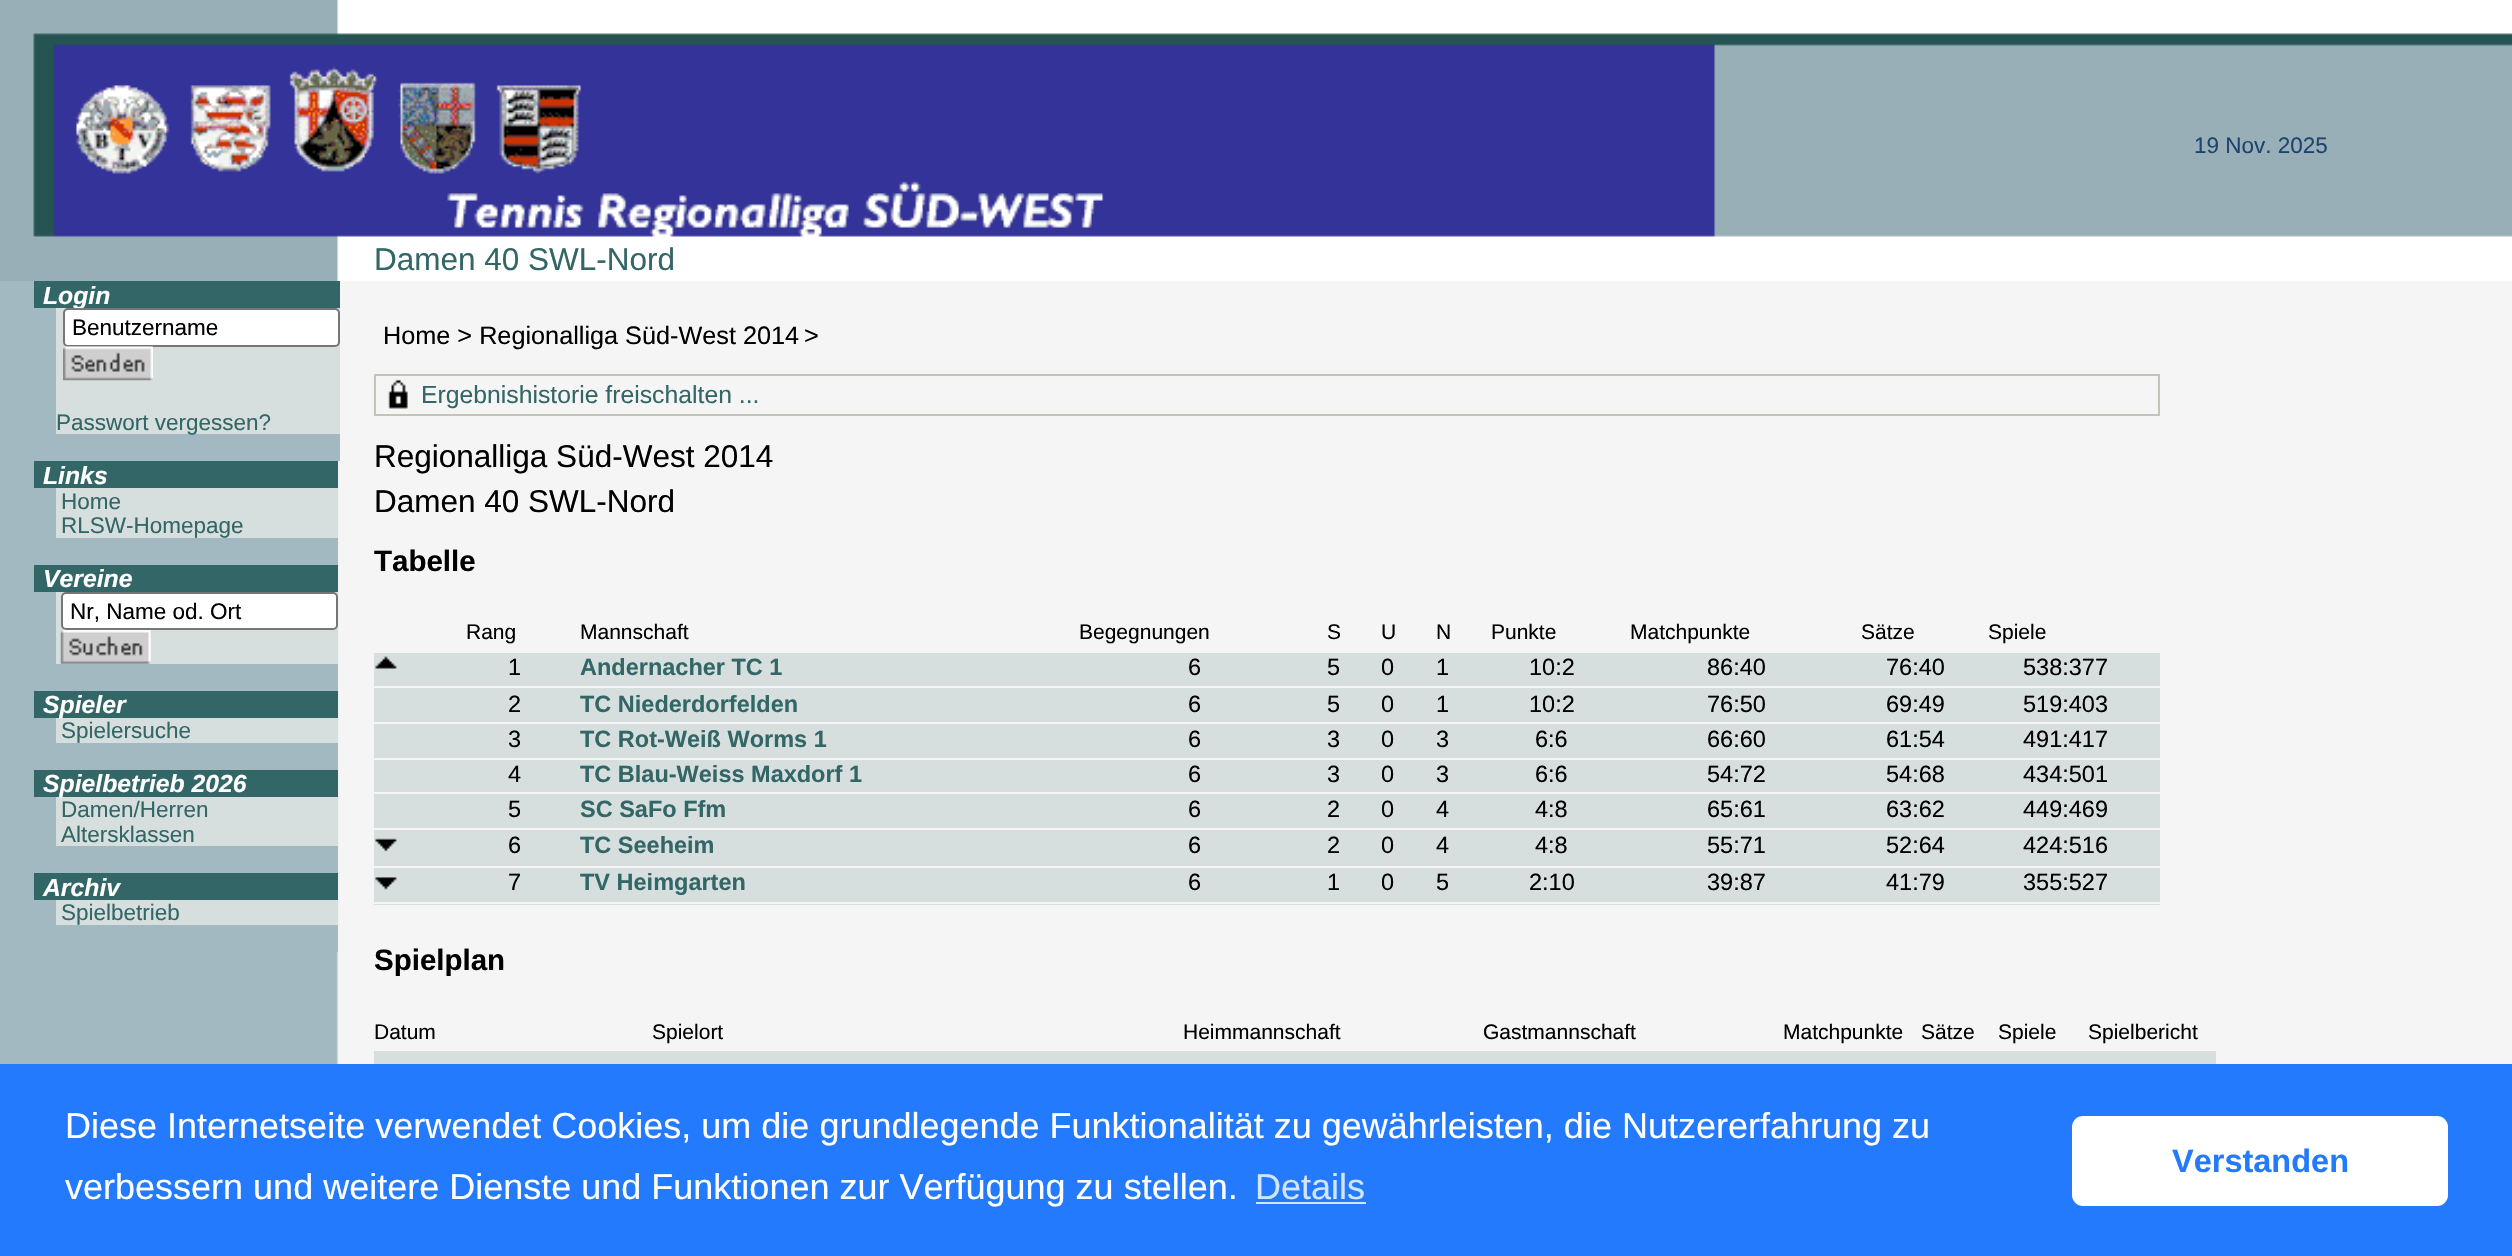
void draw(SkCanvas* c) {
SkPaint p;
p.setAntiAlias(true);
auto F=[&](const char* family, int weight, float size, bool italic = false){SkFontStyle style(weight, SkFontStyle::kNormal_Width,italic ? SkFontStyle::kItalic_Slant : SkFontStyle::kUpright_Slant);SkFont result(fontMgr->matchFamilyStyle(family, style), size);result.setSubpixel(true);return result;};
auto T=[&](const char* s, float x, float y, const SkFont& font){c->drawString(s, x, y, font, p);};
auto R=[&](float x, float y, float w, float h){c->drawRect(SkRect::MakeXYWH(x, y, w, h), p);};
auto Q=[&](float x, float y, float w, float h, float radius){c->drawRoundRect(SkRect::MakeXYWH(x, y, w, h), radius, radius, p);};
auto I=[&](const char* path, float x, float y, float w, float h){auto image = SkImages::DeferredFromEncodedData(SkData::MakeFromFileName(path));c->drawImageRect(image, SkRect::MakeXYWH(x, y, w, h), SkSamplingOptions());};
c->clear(0xffffffff);
I("1.png",0,281,2512,783);
I("2.png",0,0,2512,282);
auto f1 = F("Liberation Sans",400,22.5);
p.setColor(0xff1d446f);
T("19 Nov. 2025",2194,153,f1);
auto f2 = F("Liberation Sans",400,31.5);
p.setColor(0xff336666);
T("Damen 40 SWL-Nord",374,270,f2);
R(34,281,306,27);
p.setColor(0xffa2b9c2);
R(0,281,34,1);
p.setColor(0xffd6dede);
R(56,308,284,126);
auto f3 = F("Liberation Sans",700,24.75,true);
p.setColor(0xffffffff);
T("Login",43,304,f3);
p.setColor(0xffa2b9c2);
R(336,434,4,27);
p.setColor(0xffffffff);
c->drawRoundRect(SkRect::MakeXYWH(64,309,275,37),4,4,p);
p.setStroke(true);
p.setStrokeWidth(2);
p.setColor(0xff767676);
c->drawRoundRect(SkRect::MakeXYWH(64,309,275,37),4,4,p);
p.setStroke(false);
p.setColor(0xff000000);
T("Benutzername",72,335,f1);
I("3.png",63,346,90,35);
p.setColor(0xff336666);
T("Passwort vergessen?",56,430,f1);
R(34,461,304,27);
p.setColor(0xffffffff);
T("Links",43,484,f3);
p.setColor(0xffd6dede);
R(56,488,282,50);
p.setColor(0xffa2b9c2);
R(336,538,2,27);
p.setColor(0xff336666);
T("Home",61,509,f1);
T("RLSW-Homepage",61,533,f1);
R(34,565,304,27);
p.setColor(0xffffffff);
T("Vereine",43,587,f3);
p.setColor(0xffd6dede);
R(56,592,282,72);
p.setColor(0xffa2b9c2);
R(336,664,2,27);
p.setColor(0xffffffff);
c->drawRoundRect(SkRect::MakeXYWH(62,593,275,36),4,4,p);
p.setStroke(true);
p.setColor(0xff767676);
c->drawRoundRect(SkRect::MakeXYWH(62,593,275,36),4,4,p);
p.setStroke(false);
p.setColor(0xff000000);
T("Nr, Name od. Ort",70,619,f1);
I("4.png",60,630,91,34);
p.setColor(0xff336666);
R(34,691,304,27);
p.setColor(0xffd6dede);
R(56,718,282,25);
p.setColor(0xffffffff);
T("Spieler",43,713,f3);
p.setColor(0xffa2b9c2);
R(336,743,2,27);
p.setColor(0xff336666);
T("Spielersuche",61,738,f1);
R(34,770,304,27);
p.setColor(0xffd6dede);
R(56,797,282,49);
p.setColor(0xffffffff);
T("Spielbetrieb 2026",43,792,f3);
p.setColor(0xffa2b9c2);
R(336,846,2,27);
p.setColor(0xff336666);
T("Damen/Herren",61,817,f1);
T("Altersklassen",61,842,f1);
R(34,873,304,27);
p.setColor(0xffffffff);
T("Archiv",43,896,f3);
p.setColor(0xffd6dede);
R(56,900,282,25);
p.setColor(0xffa2b9c2);
R(336,925,2,27);
p.setColor(0xff336666);
T("Spielbetrieb",61,920,f1);
p.setStroke(true);
p.setColor(0xffc5c4b9);
c->drawRect(SkRect::MakeXYWH(375,375,1784,40),p);
I("5.png",388,379,20,30);
auto f4 = F("Liberation Sans",400,24.75);
p.setStroke(false);
p.setColor(0xff336666);
T("Ergebnishistorie freischalten ...",421,403,f4);
p.setColor(0xff000000);
T("Regionalliga Süd-West 2014",374,467,f2);
T("Damen 40 SWL-Nord",374,512,f2);
auto f5 = F("Liberation Sans",700,29.5);
T("Tabelle",374,571,f5);
auto f6 = F("Liberation Sans",400,21);
T("Rang",466,639,f6);
T("Mannschaft",580,639,f6);
T("Begegnungen",1079,639,f6);
T("S",1327,639,f6);
T("U",1381,639,f6);
T("N",1436,639,f6);
T("Punkte",1491,639,f6);
T("Matchpunkte",1630,639,f6);
T("Sätze",1861,639,f6);
T("Spiele",1988,639,f6);
p.setColor(0xffd6dede);
R(374,653,1786,36);
p.setColor(0xfff5f5f5);
R(374,686,1786,2);
I("6.png",375,656,22,13);
auto f7 = F("Liberation Sans",400,23.5);
p.setColor(0xff000000);
T("1",508,675,f7);
auto f8 = F("Liberation Sans",700,23.5);
p.setColor(0xff336666);
T("Andernacher TC 1",580,675,f8);
p.setColor(0xff000000);
T("6",1188,675,f7);
T("5",1327,675,f7);
T("0",1381,675,f7);
T("1",1436,675,f7);
T("10:2",1529,675,f7);
T("86:40",1707,675,f7);
T("76:40",1886,675,f7);
T("538:377",2023,675,f7);
p.setColor(0xffd6dede);
R(374,689,1786,36);
p.setColor(0xfff5f5f5);
R(374,722,1786,2);
p.setColor(0xff000000);
T("2",508,712,f7);
p.setColor(0xff336666);
T("TC Niederdorfelden",580,712,f8);
p.setColor(0xff000000);
T("6",1188,712,f7);
T("5",1327,712,f7);
T("0",1381,712,f7);
T("1",1436,712,f7);
T("10:2",1529,712,f7);
T("76:50",1707,712,f7);
T("69:49",1886,712,f7);
T("519:403",2023,712,f7);
p.setColor(0xffd6dede);
R(374,725,1786,36);
p.setColor(0xfff5f5f5);
R(374,758,1786,2);
p.setColor(0xff000000);
T("3",508,747,f7);
p.setColor(0xff336666);
T("TC Rot-Weiß Worms 1",580,747,f8);
p.setColor(0xff000000);
T("6",1188,747,f7);
T("3",1327,747,f7);
T("0",1381,747,f7);
T("3",1436,747,f7);
T("6:6",1535,747,f7);
T("66:60",1707,747,f7);
T("61:54",1886,747,f7);
T("491:417",2023,747,f7);
p.setColor(0xffd6dede);
R(374,761,1786,31);
p.setColor(0xff000000);
T("4",508,782,f7);
p.setColor(0xff336666);
T("TC Blau-Weiss Maxdorf 1",580,782,f8);
p.setColor(0xff000000);
T("6",1188,782,f7);
T("3",1327,782,f7);
T("0",1381,782,f7);
T("3",1436,782,f7);
T("6:6",1535,782,f7);
T("54:72",1707,782,f7);
T("54:68",1886,782,f7);
T("434:501",2023,782,f7);
p.setColor(0xffd6dede);
R(374,794,1786,34);
p.setColor(0xff000000);
T("5",508,817,f7);
p.setColor(0xff336666);
T("SC SaFo Ffm",580,817,f8);
p.setColor(0xff000000);
T("6",1188,817,f7);
T("2",1327,817,f7);
T("0",1381,817,f7);
T("4",1436,817,f7);
T("4:8",1535,817,f7);
T("65:61",1707,817,f7);
T("63:62",1886,817,f7);
T("449:469",2023,817,f7);
p.setColor(0xffd6dede);
R(374,830,1786,39);
p.setColor(0xfff5f5f5);
R(374,866,1786,2);
I("7.png",375,838,22,14);
p.setColor(0xff000000);
T("6",508,853,f7);
p.setColor(0xff336666);
T("TC Seeheim",580,853,f8);
p.setColor(0xff000000);
T("6",1188,853,f7);
T("2",1327,853,f7);
T("0",1381,853,f7);
T("4",1436,853,f7);
T("4:8",1535,853,f7);
T("55:71",1707,853,f7);
T("52:64",1886,853,f7);
T("424:516",2023,853,f7);
p.setColor(0xffd6dede);
R(374,869,1786,36);
p.setColor(0xfff5f5f5);
R(374,902,1786,2);
I("8.png",375,877,22,13);
p.setColor(0xff000000);
T("7",508,890,f7);
p.setColor(0xff336666);
T("TV Heimgarten",580,890,f8);
p.setColor(0xff000000);
T("6",1188,890,f7);
T("1",1327,890,f7);
T("0",1381,890,f7);
T("5",1436,890,f7);
T("2:10",1529,890,f7);
T("39:87",1707,890,f7);
T("41:79",1886,890,f7);
T("355:527",2023,890,f7);
T("Spielplan",374,970,f5);
T("Datum",374,1039,f6);
T("Spielort",652,1039,f6);
T("Heimmannschaft",1183,1039,f6);
T("Gastmannschaft",1483,1039,f6);
T("Matchpunkte",1783,1039,f6);
T("Sätze",1921,1039,f6);
T("Spiele",1998,1039,f6);
T("Spielbericht",2088,1039,f6);
p.setColor(0xffd6dede);
R(374,1051,1842,13);
auto f9 = F("Liberation Sans",400,25.25);
p.setColor(0xff000000);
T("Home > Regionalliga Süd-West 2014",383,344,f9);
T(">",804,344,f9);
p.setColor(0xff237afc);
R(0,1064,2512,192);
auto f10 = F("Liberation Sans",400,36);
p.setColor(0xffffffff);
T("Diese Internetseite verwendet Cookies, um die grundlegende Funktionalität zu gewährleisten, die Nutzererfahrung zu",65,1138,f10);
T("verbessern und weitere Dienste und Funktionen zur Verfügung zu stellen.",65,1199,f10);
p.setColor(0xffd3e4fe);
T("Details",1255,1199,f10);
R(1256,1202,110,2);
p.setColor(0xffffffff);
Q(2072,1116,376,90,11);
auto f11 = F("Liberation Sans",700,32.5);
p.setColor(0xff237afc);
T("Verstanden",2172,1172,f11);
}
